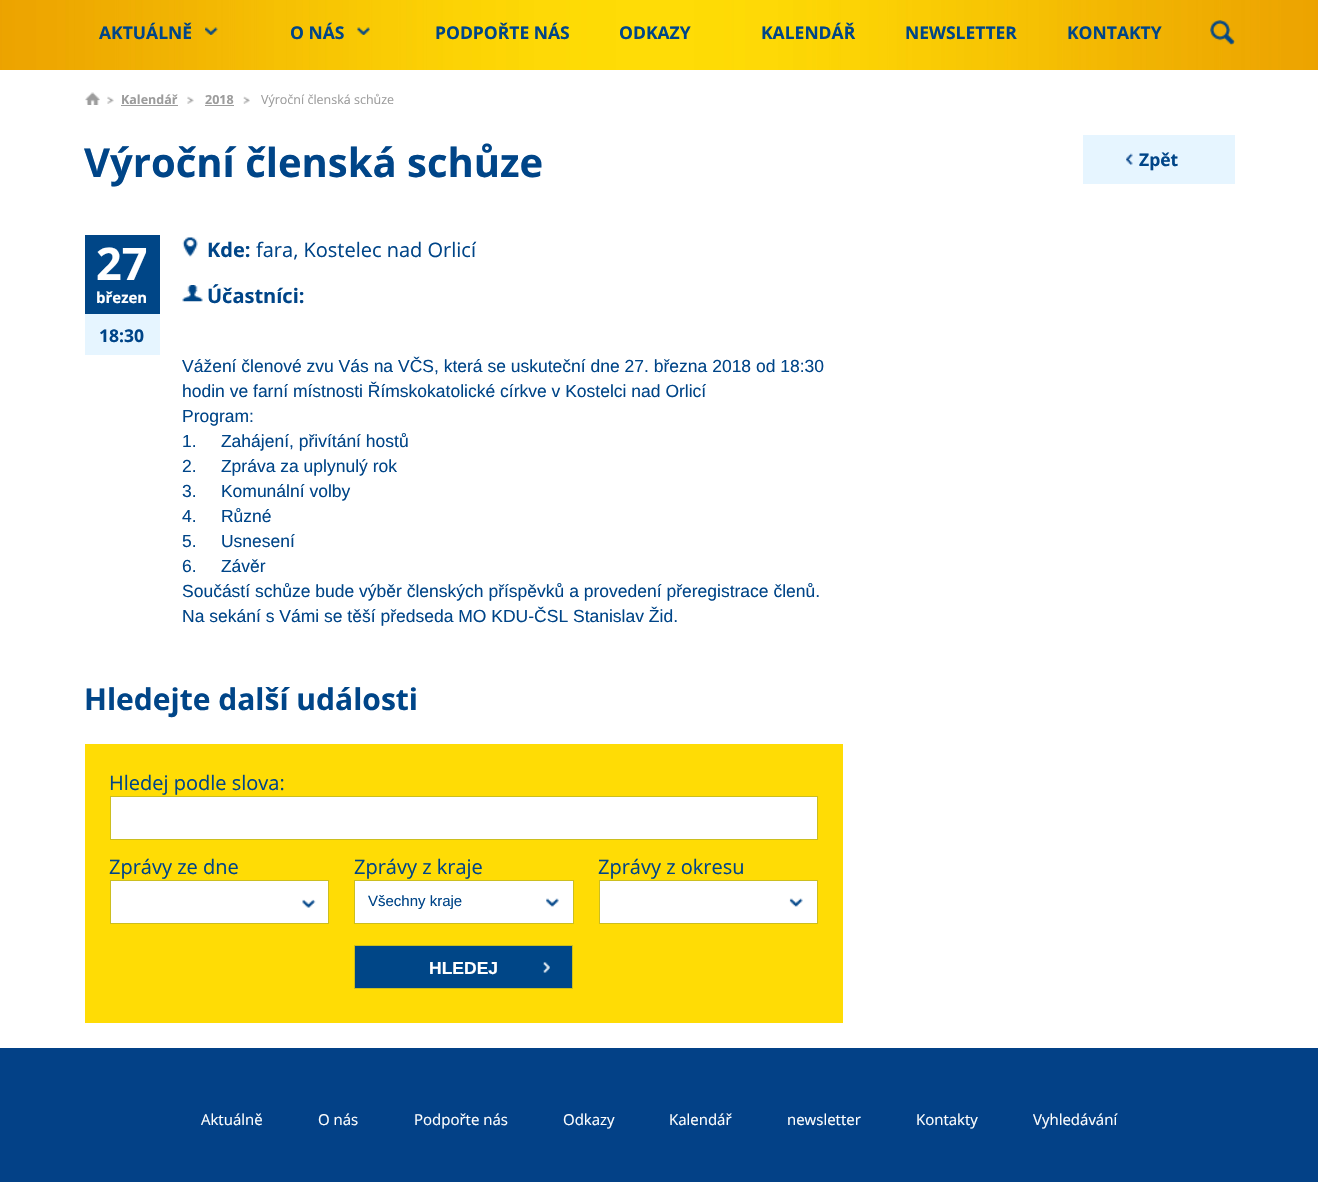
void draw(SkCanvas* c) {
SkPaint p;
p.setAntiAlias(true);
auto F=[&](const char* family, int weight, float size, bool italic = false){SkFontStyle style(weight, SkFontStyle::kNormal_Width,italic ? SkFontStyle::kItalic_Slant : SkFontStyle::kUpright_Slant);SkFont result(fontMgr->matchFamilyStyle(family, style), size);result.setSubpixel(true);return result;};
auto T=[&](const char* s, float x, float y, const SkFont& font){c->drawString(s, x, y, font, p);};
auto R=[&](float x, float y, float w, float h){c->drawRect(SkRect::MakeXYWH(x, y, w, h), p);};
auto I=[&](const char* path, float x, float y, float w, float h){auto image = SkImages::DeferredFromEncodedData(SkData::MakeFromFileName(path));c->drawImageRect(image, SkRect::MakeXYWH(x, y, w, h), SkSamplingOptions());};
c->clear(0xffffffff);
I("1.png",0,0,1318,70);
I("2.png",205,27,13,8);
auto f1 = F("Open Sans",700,17.5);
p.setColor(0xff004588);
T("AKTUÁLNĚ",99,39,f1);
I("3.png",357,27,13,8);
T("O NÁS",290,39,f1);
T("PODPOŘTE NÁS",435,39,f1);
T("ODKAZY",619,39,f1);
T("KALENDÁŘ",761,39,f1);
T("NEWSLETTER",905,39,f1);
T("KONTAKTY",1067,39,f1);
I("4.png",1210,20,25,25);
I("5.png",85,92,15,13);
I("6.png",107,96,7,8);
auto f2 = F("Open Sans",700,12.5);
p.setColor(0xff9c9c9c);
T("Kalendář",121,104,f2);
R(121,105,57,1);
I("6.png",187,96,7,8);
T("2018",205,104,f2);
R(205,105,29,1);
I("7.png",243,96,7,8);
auto f3 = F("Open Sans",400,12.5);
T("Výroční členská schůze",261,104,f3);
auto f4 = F("Open Sans",700,40);
p.setColor(0xff004588);
T("Výroční členská schůze",84,177,f4);
p.setColor(0xffe6f5ff);
R(1083,135,152,49);
I("8.png",1126,153,7,12);
p.setColor(0xff004588);
T("Zpět",1139,166,f1);
p.setColor(0xff004687);
R(85,235,75,79);
auto f5 = F("Open Sans",700,45);
p.setColor(0xffffffff);
T("27",96,280,f5);
auto f6 = F("Open Sans",700,15);
T("březen",96,303,f6);
p.setColor(0xffe6f5ff);
R(85,314,75,41);
p.setColor(0xff004588);
T("18:30",99,342,f1);
I("9.png",182,237,16,20);
auto f7 = F("Open Sans",700,20);
T("Kde:",207,257,f7);
auto f8 = F("Open Sans",400,20);
T("fara, Kostelec nad Orlicí",256,257,f8);
I("10.png",182,285,21,17);
T("Účastníci:",207,303,f7);
auto f9 = F("Liberation Sans",400,17.5);
T("Vážení členové zvu Vás na VČS, která se uskuteční dne 27. března 2018 od 18:30",182,372,f9);
T("hodin ve farní místnosti Římskokatolické církve v Kostelci nad Orlicí",182,397,f9);
T("Program:",182,422,f9);
T("1.     Zahájení, přivítání hostů",182,447,f9);
T("2.     Zpráva za uplynulý rok",182,472,f9);
T("3.     Komunální volby",182,497,f9);
T("4.     Různé",182,522,f9);
T("5.     Usnesení",182,547,f9);
T("6.     Závěr",182,572,f9);
T("Součástí schůze bude výběr členských příspěvků a provedení přeregistrace členů.",182,597,f9);
T("Na sekání s Vámi se těší předseda MO KDU-ČSL Stanislav Žid.",182,622,f9);
auto f10 = F("Open Sans",700,30);
T("Hledejte další události",84,710,f10);
p.setColor(0xffffdc05);
R(85,744,758,279);
p.setColor(0xff004588);
T("Hledej podle slova:",109,790,f8);
p.setColor(0xffffffff);
c->drawRect(SkRect::MakeXYWH(110.5,796.5,707,43),p);
p.setStroke(true);
p.setStrokeWidth(1);
p.setColor(0xffccbe1f);
c->drawRect(SkRect::MakeXYWH(110.5,796.5,707,43),p);
p.setStroke(false);
p.setColor(0xff004588);
T("Zprávy ze dne",109,874,f8);
p.setColor(0xffffffff);
c->drawRect(SkRect::MakeXYWH(110.5,880.5,218,43),p);
p.setStroke(true);
p.setColor(0xffccbe1f);
c->drawRect(SkRect::MakeXYWH(110.5,880.5,218,43),p);
I("11.png",302,899,14,9);
p.setStroke(false);
p.setColor(0xff004588);
T("Zprávy z kraje",354,874,f8);
p.setColor(0xffffffff);
c->drawRect(SkRect::MakeXYWH(354.5,880.5,219,43),p);
p.setStroke(true);
p.setColor(0xffccbe1f);
c->drawRect(SkRect::MakeXYWH(354.5,880.5,219,43),p);
auto f11 = F("Liberation Sans",400,15);
p.setStroke(false);
p.setColor(0xff004588);
T("Všechny kraje",368,906,f11);
I("12.png",546,898,13,9);
T("Zprávy z okresu",598,874,f8);
p.setColor(0xffffffff);
c->drawRect(SkRect::MakeXYWH(599.5,880.5,218,43),p);
p.setStroke(true);
p.setColor(0xffccbe1f);
c->drawRect(SkRect::MakeXYWH(599.5,880.5,218,43),p);
I("13.png",789,898,14,9);
p.setStroke(false);
p.setColor(0xff004687);
R(355,946,217,42);
I("14.png",543,962,7,11);
p.setStroke(true);
p.setColor(0xffccbe1f);
c->drawRect(SkRect::MakeXYWH(354.5,945.5,218,43),p);
auto f12 = F("Liberation Sans",700,17.5);
p.setStroke(false);
p.setColor(0xffffffff);
T("HLEDEJ",429,974,f12);
p.setColor(0xff034187);
R(0,1048,1318,134);
auto f13 = F("Open Sans",400,15);
p.setColor(0xffffffff);
T("Aktuálně",201,1125,f13);
T("O nás",318,1125,f13);
T("Podpořte nás",414,1125,f13);
T("Odkazy",563,1125,f13);
T("Kalendář",669,1125,f13);
T("newsletter",787,1125,f13);
T("Kontakty",916,1125,f13);
T("Vyhledávání",1033,1125,f13);
}
